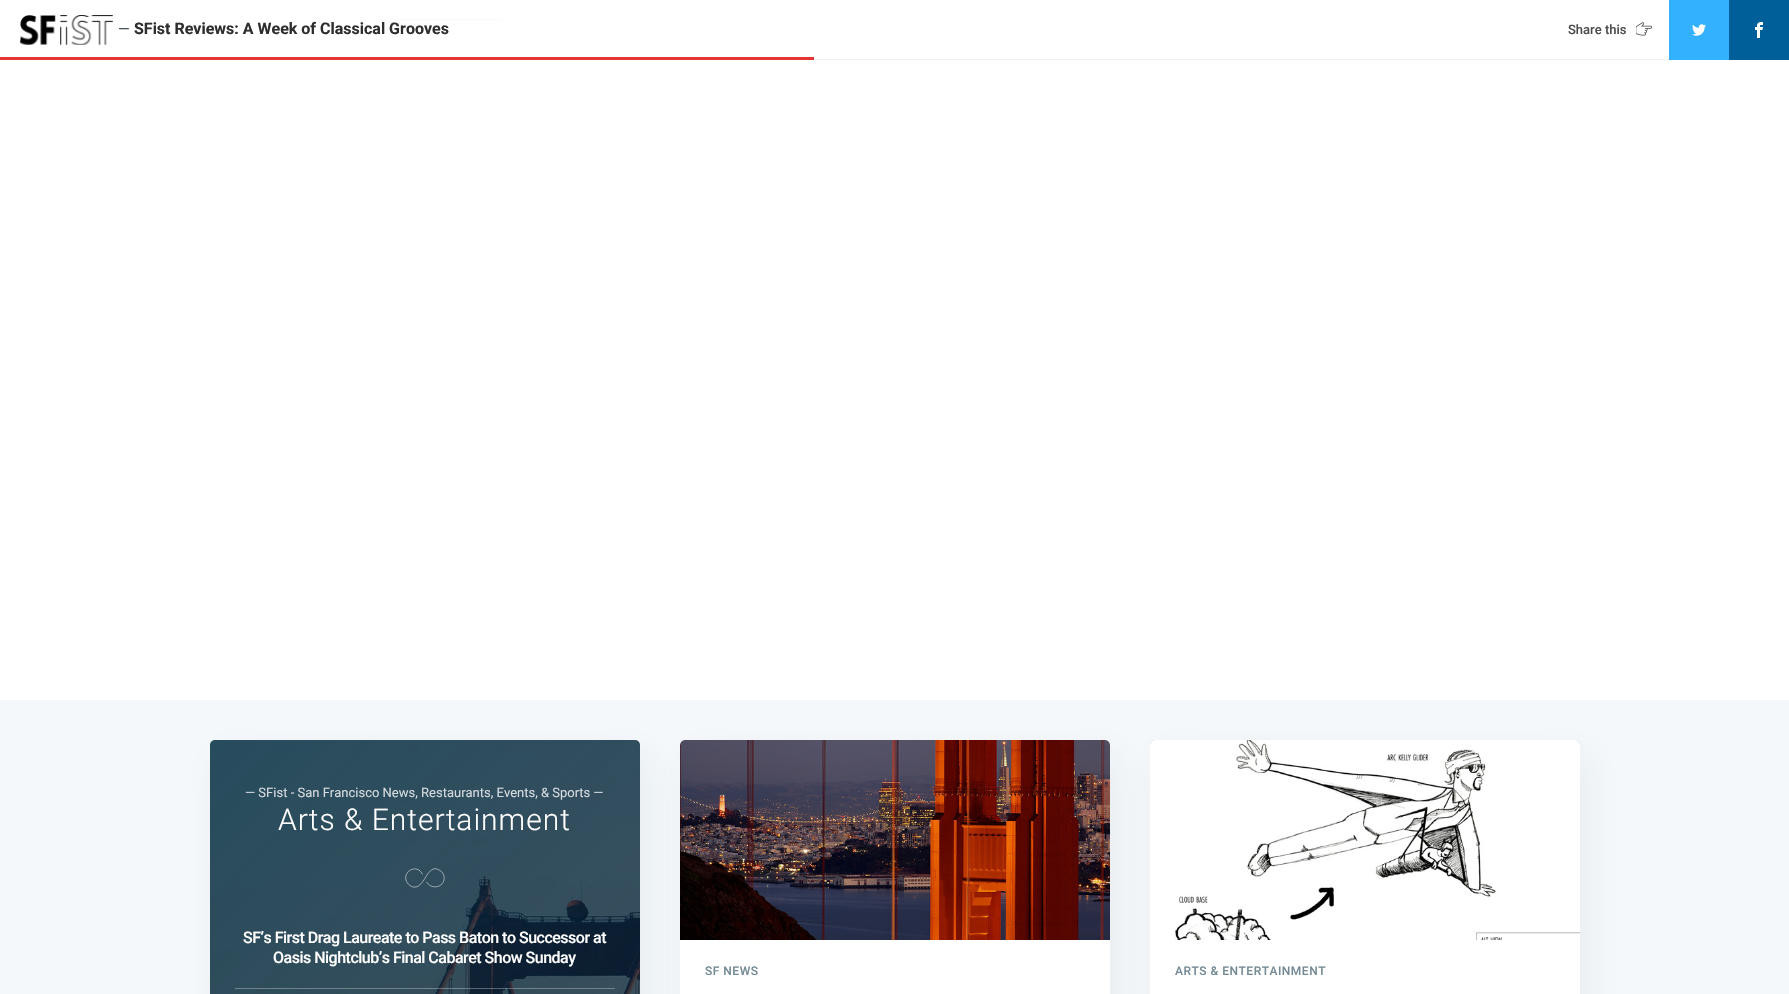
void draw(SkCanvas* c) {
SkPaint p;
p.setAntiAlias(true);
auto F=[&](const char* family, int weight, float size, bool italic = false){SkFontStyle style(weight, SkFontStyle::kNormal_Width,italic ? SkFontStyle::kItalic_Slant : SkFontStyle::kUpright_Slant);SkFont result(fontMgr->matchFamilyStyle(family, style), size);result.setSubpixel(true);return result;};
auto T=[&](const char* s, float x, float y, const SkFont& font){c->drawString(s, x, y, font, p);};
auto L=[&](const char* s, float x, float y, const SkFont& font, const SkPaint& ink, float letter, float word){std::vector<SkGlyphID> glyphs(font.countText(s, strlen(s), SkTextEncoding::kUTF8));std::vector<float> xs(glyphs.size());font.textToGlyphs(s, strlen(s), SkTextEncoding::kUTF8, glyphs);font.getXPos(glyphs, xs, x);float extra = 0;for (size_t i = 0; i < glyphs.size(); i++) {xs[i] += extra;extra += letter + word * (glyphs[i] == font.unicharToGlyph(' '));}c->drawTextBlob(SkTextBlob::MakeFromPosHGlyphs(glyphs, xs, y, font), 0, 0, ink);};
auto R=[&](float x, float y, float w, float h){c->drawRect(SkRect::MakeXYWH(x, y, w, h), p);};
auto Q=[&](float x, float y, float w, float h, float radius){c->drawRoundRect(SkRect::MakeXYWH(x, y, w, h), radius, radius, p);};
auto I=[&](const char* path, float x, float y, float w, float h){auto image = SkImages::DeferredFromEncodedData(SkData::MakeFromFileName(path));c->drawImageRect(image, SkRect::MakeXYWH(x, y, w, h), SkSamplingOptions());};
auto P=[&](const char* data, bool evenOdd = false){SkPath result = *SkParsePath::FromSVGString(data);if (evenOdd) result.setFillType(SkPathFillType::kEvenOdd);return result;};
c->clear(0xfff4f8fb);
p.setColor(0x0f272c31);
p.setMaskFilter(SkMaskFilter::MakeBlur(kNormal_SkBlurStyle, 19));
c->drawRoundRect(SkRect::MakeXYWH(688,754,430,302),5,5,p);
p.setMaskFilter(nullptr);
p.setColor(0xffffffff);
Q(680,740,430,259,5);
p.setColor(0x0f272c31);
p.setMaskFilter(SkMaskFilter::MakeBlur(kNormal_SkBlurStyle, 19));
c->drawRoundRect(SkRect::MakeXYWH(218,754,430,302),5,5,p);
p.setMaskFilter(nullptr);
p.setMaskFilter(SkMaskFilter::MakeBlur(kNormal_SkBlurStyle, 19));
c->drawRoundRect(SkRect::MakeXYWH(1158,754,430,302),5,5,p);
p.setMaskFilter(nullptr);
p.setColor(0xffffffff);
R(0,60,1789,640);
R(0,0,1669,59);
p.setColor(0xfff5fbfe);
R(372,19,131,1);
p.setColor(0xfff0f0f0);
R(814,59,855,1);
I("1.png",20,15,93,30);
auto f1 = F("Roboto",400,15);
p.setColor(0xff3c484e);
T("—",118,34,f1);
auto f2 = F("Roboto",700,16);
p.setColor(0xff2e2e2e);
T("SFist Reviews: A Week of Classical Grooves",134,34,f2);
auto f3 = F("Roboto",500,13);
p.setColor(0xff4c4c4c);
T("Share this",1568,34,f3);
I("2.png",1636,22,16,14);
p.setColor(0xff33b1ff);
R(1669,0,60,60);
I("3.png",1692,24,14,12);
p.setColor(0xff005e99);
R(1729,0,60,60);
I("4.png",1755,22,8,16);
p.setColor(0xffe43434);
R(0,57,814,3);
I("5.png",210,740,430,254);
{
const SkColor colors[] = {0xcc00283c,0xb3001428};
const float stops[] = {0,1};
const SkPoint ends[] = {{197,753}, {653,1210}};
p.setShader(SkGradientShader::MakeLinear(ends, colors, stops, 2, SkTileMode::kClamp));
p.setAlpha(255);
}
Q(210,740,430,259,5);
auto f4 = F("Roboto",400,13);
p.setShader(nullptr);
p.setColor(0xffd5dbdf);
T("— SFist - San Francisco News, Restaurants, Events, & Sports —",245,797,f4);
auto f5 = F("Roboto",300,30);
p.setColor(0xffffffff);
L("Arts & Entertainment",278,830,f5,p,1,0);
p.setStroke(true);
p.setStrokeWidth(.8);
p.setColor(0xffb7c1c6);
c->drawPath(P("M426.5 882c6 9 19.5 4.5 17.5-6c-.5-2-2-4.5-4-5.5c-13.5-9.5-15 21.5-28.5 16c-2-1-4-3-5-5c-4.5-10.5 11-18.5 16-7"),p);
p.setStroke(false);
p.setColor(0x4dffffff);
R(235,988,380,1);
auto f6 = F("Roboto",500,16);
p.setColor(0xffffffff);
L("SF’s First Drag Laureate to Pass Baton to Successor at",243,943,f6,p,-.5,0);
L("Oasis Nightclub’s Final Cabaret Show Sunday",273,963,f6,p,-.5,0);
p.setColor(0xffc5d2d9);
c->drawPath(P("M685 740h420c3 0 5 2 5 5v195h-430v-195c0-3 2-5 5-5z"),p);
I("6.png",680,740,430,200);
auto f7 = F("Roboto",500,12);
p.setColor(0xff738a94);
L("SF NEWS",705,975,f7,p,.5,0);
p.setColor(0xffffffff);
Q(1150,740,430,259,5);
p.setColor(0xffc5d2d9);
c->drawPath(P("M1155 740h420c3 0 5 2 5 5v195h-430v-195c0-3 2-5 5-5z"),p);
I("7.png",1150,740,430,200);
p.setColor(0xff738a94);
L("ARTS & ENTERTAINMENT",1175,975,f7,p,.5,0);
}
